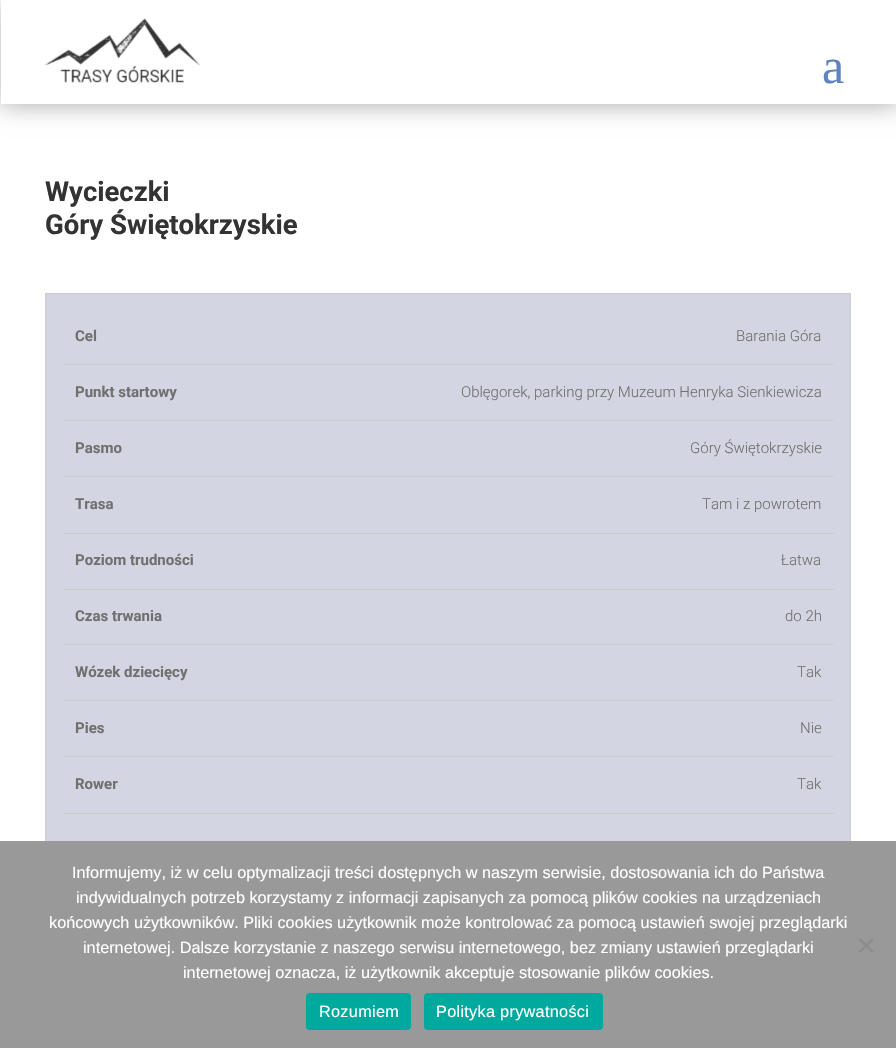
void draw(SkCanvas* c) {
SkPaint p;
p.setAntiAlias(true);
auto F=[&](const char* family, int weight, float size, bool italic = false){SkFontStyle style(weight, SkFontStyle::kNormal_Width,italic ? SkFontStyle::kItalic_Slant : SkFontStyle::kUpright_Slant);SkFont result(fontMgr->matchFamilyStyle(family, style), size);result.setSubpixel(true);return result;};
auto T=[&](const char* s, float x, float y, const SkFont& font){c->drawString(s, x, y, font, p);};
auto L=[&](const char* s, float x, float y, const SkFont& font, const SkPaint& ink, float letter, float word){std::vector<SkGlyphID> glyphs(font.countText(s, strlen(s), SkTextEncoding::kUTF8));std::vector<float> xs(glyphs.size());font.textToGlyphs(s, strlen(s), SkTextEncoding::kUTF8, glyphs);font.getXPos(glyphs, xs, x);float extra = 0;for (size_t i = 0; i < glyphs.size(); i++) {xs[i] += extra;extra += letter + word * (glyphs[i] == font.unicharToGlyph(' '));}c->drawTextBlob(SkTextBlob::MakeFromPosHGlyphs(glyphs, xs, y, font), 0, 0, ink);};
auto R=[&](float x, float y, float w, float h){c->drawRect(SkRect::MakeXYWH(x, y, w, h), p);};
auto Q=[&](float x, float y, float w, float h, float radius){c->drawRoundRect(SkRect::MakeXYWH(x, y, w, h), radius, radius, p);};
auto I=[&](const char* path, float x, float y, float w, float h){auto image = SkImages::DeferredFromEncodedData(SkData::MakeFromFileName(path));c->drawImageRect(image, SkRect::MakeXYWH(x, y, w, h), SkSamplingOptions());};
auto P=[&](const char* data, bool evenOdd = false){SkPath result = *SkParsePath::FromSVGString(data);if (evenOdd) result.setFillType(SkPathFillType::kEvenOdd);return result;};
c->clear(0xffffffff);
p.setColor(0x4d000000);
p.setMaskFilter(SkMaskFilter::MakeBlur(kNormal_SkBlurStyle, 11));
c->drawRect(SkRect::MakeXYWH(1,3,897,103),p);
p.setMaskFilter(nullptr);
p.setColor(0xffffffff);
R(1,0,895,104);
I("1.png",44,18,157,65);
auto f1 = F("Liberation Serif",400,50);
p.setColor(0xff5f82c0);
T("a",822,83,f1);
auto f2 = F("Roboto",700,27.5);
p.setColor(0xff333333);
T("Wycieczki",45,201,f2);
T("Góry Świętokrzyskie",45,234,f2);
p.setColor(0xffd3d5e2);
R(46,294,804,547);
p.setStroke(true);
p.setStrokeWidth(1);
p.setColor(0xffcccccc);
c->drawRect(SkRect::MakeXYWH(45.5,293.5,805,675),p);
p.setStroke(false);
R(63,364,771,1);
auto f3 = F("Roboto",700,15);
p.setColor(0xff707070);
T("Cel",75,341,f3);
auto f4 = F("Roboto",300,15);
T("Barania Góra",736,341,f4);
p.setColor(0xffcccccc);
R(63,420,771,1);
p.setColor(0xff707070);
T("Punkt startowy",75,397,f3);
T("Oblęgorek, parking przy Muzeum Henryka Sienkiewicza",461,397,f4);
p.setColor(0xffcccccc);
R(63,476,771,1);
p.setColor(0xff707070);
T("Pasmo",75,453,f3);
T("Góry Świętokrzyskie",690,453,f4);
p.setColor(0xffcccccc);
R(63,533,771,1);
p.setColor(0xff707070);
T("Trasa",75,509,f3);
T("Tam i z powrotem",702,509,f4);
p.setColor(0xffcccccc);
R(63,589,771,1);
p.setColor(0xff707070);
T("Poziom trudności",75,565,f3);
T("Łatwa",781,565,f4);
p.setColor(0xffcccccc);
R(63,644,771,1);
p.setColor(0xff707070);
T("Czas trwania",75,621,f3);
T("do 2h",785,621,f4);
p.setColor(0xffcccccc);
R(63,700,771,1);
p.setColor(0xff707070);
T("Wózek dziecięcy",75,677,f3);
T("Tak",797,677,f4);
p.setColor(0xffcccccc);
R(63,756,771,1);
p.setColor(0xff707070);
T("Pies",75,733,f3);
T("Nie",800,733,f4);
p.setColor(0xffcccccc);
R(63,813,771,1);
p.setColor(0xff707070);
T("Rower",75,789,f3);
T("Tak",797,789,f4);
p.setColor(0xff999999);
R(0,841,896,207);
auto f5 = F("Liberation Sans",400,16.25);
p.setColor(0xffffffff);
T("Informujemy, iż w celu optymalizacji treści dostępnych w naszym serwisie, dostosowania ich do Państwa",72,878,f5);
T("indywidualnych potrzeb korzystamy z informacji zapisanych za pomocą plików cookies na urządzeniach",76,903,f5);
T("końcowych użytkowników. Pliki cookies użytkownik może kontrolować za pomocą ustawień swojej przeglądarki",49,928,f5);
T("internetowej. Dalsze korzystanie z naszego serwisu internetowego, bez zmiany ustawień przeglądarki",83,953,f5);
T("internetowej oznacza, iż użytkownik akceptuje stosowanie plików cookies.",183,978,f5);
p.setColor(0xff8d8d8d);
c->drawPath(P("M872 938l2 2l-13.5 13l-2-1.5z"),p);
c->drawPath(P("M858.5 940l2-2l13.5 13.5l-2 1.5z"),p);
p.setColor(0xff00a99d);
Q(306,993,105,37,4);
p.setColor(0xffffffff);
L("Rozumiem",319,1017,f5,p,.3,0);
p.setColor(0xff00a99d);
Q(424,993,179,37,4);
p.setColor(0xffffffff);
L("Polityka prywatności",436,1017,f5,p,.3,0);
}
